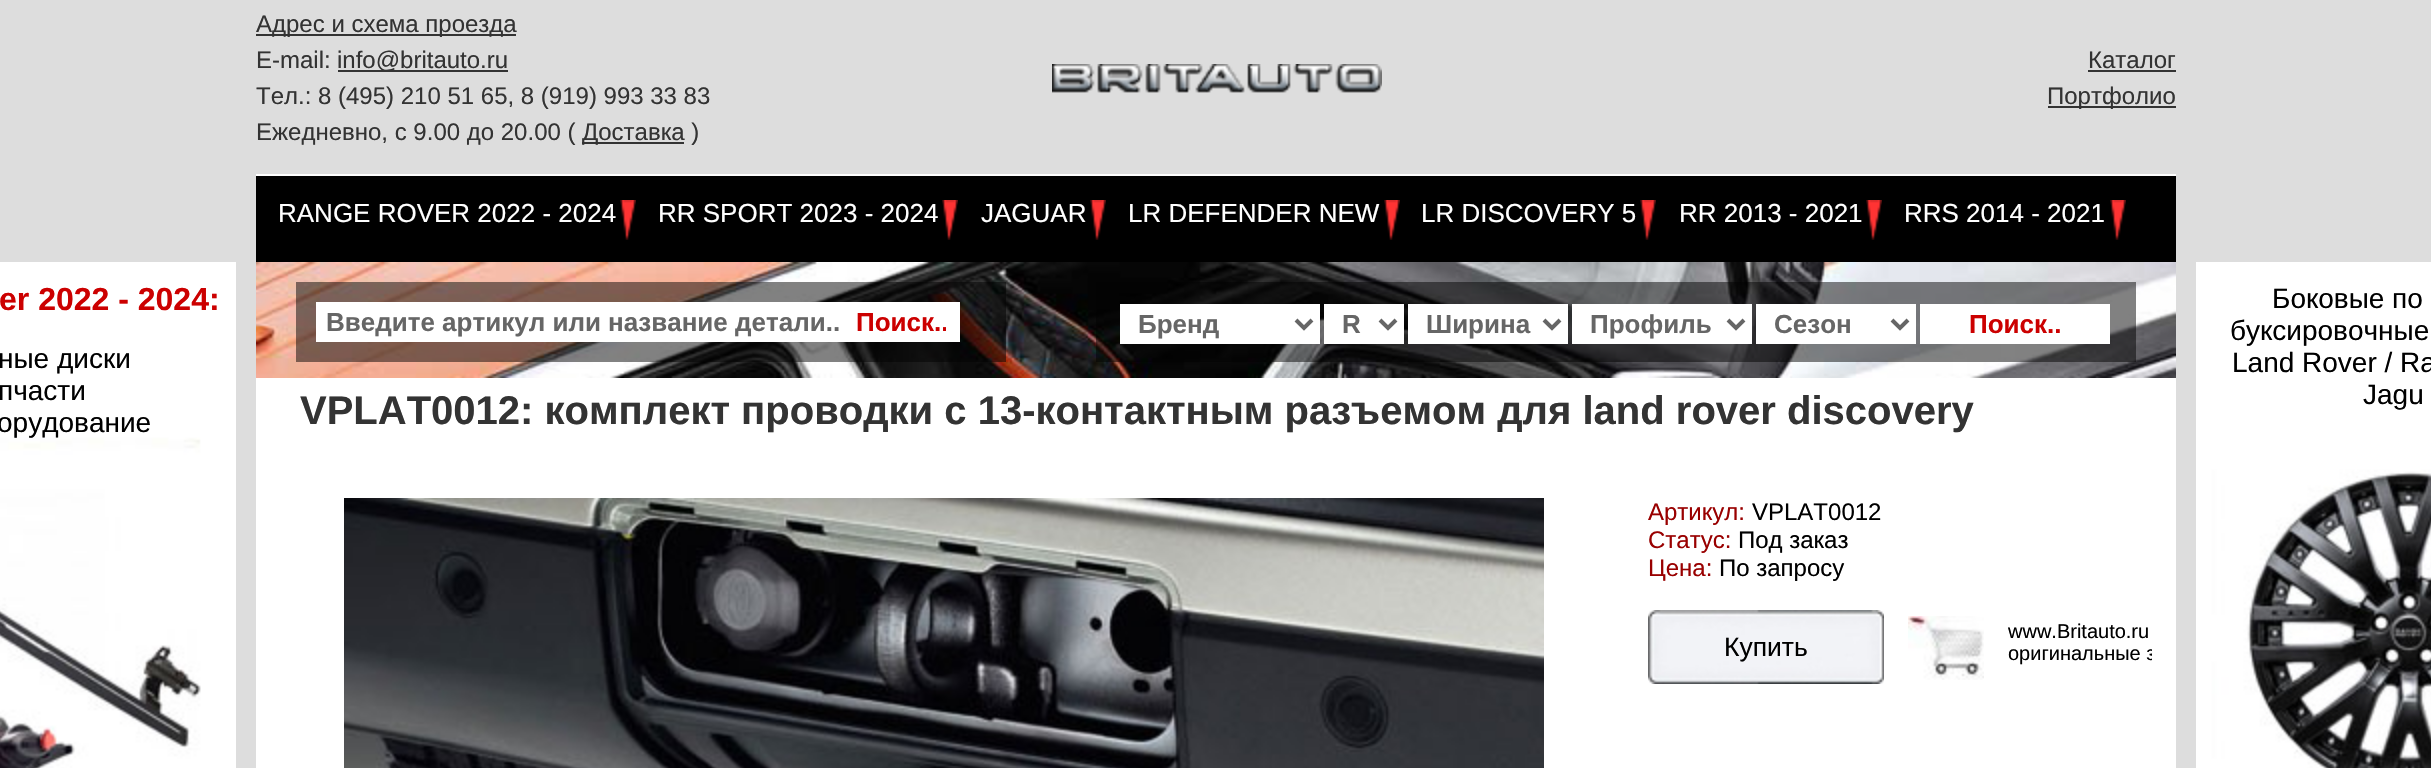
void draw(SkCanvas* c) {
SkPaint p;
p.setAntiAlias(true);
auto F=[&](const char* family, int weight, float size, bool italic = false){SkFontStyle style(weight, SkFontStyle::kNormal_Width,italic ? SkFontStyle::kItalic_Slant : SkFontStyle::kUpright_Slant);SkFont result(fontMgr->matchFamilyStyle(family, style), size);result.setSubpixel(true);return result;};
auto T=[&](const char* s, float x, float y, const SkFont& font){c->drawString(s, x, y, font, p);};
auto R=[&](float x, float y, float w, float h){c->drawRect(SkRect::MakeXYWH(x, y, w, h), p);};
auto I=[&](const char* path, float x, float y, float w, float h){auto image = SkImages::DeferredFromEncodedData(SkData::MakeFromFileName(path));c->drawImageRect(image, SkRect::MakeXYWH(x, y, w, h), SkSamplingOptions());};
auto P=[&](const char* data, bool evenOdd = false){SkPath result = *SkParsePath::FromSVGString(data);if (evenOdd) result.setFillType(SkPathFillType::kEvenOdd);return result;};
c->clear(0xffdddddd);
p.setColor(0xff000000);
R(256,176,1920,86);
p.setColor(0xff333333);
R(256,34,260,2);
auto f1 = F("Liberation Sans",400,24);
T("Адрес и схема проезда",256,32,f1);
T("E-mail:",256,68,f1);
R(338,70,170,2);
T("info@britauto.ru",337,68,f1);
T("Тел.: 8 (495) 210 51 65, 8 (919) 993 33 83",256,104,f1);
T("Ежедневно, с 9.00 до 20.00 (",256,140,f1);
R(582,142,102,2);
T("Доставка )",582,140,f1);
I("1.png",1052,64,330,29);
T("Каталог",2088,68,f1);
R(2088,70,88,2);
R(2048,106,128,2);
T("Портфолио",2047,104,f1);
p.setColor(0xffffffff);
R(256,174,1920,2);
I("2.png",620,200,16,40);
auto f2 = F("Liberation Sans",400,26);
T("RANGE ROVER 2022 - 2024",278,222,f2);
I("2.png",942,200,16,40);
T("RR SPORT 2023 - 2024",658,222,f2);
I("2.png",1090,200,16,40);
T("JAGUAR",981,222,f2);
I("2.png",1384,200,16,40);
T("LR DEFENDER NEW",1128,222,f2);
I("2.png",1640,200,16,40);
T("LR DISCOVERY 5",1421,222,f2);
I("2.png",1866,200,16,40);
T("RR 2013 - 2021",1679,222,f2);
I("2.png",2110,200,16,40);
T("RRS 2014 - 2021",1904,222,f2);
I("3.png",256,262,1920,116);
I("4.png",0,262,236,506);
auto f3 = F("Liberation Sans",700,32);
p.setColor(0xffcc0000);
T("er 2022 - 2024:",-1,310,f3);
auto f4 = F("Liberation Sans",400,28);
p.setColor(0xff000000);
T("ные диски",-2,368,f4);
T("пчасти",-2,400,f4);
T("орудование",-3,432,f4);
p.setColor(0x7d000000);
R(296,282,710,80);
p.setColor(0xffffffff);
R(316,302,644,40);
auto f5 = F("Liberation Sans",700,26);
p.setColor(0xff666666);
T("Введите артикул или название детали..",326,331,f5);
c->save();
c->clipRect(SkRect::MakeXYWH(856,302,90,40));
p.setColor(0xffcc0000);
T("Поиск..",856,331,f5);
c->restore();
p.setColor(0x7d000000);
R(1096,282,1040,80);
p.setColor(0xffffffff);
R(1120,304,200,40);
p.setStroke(true);
p.setStrokeWidth(4);
p.setColor(0xff666666);
c->drawPath(P("M1296 320l8 8l8-8"),p);
p.setStroke(false);
T("Бренд",1138,333,f5);
p.setColor(0xffffffff);
R(1324,304,80,40);
p.setStroke(true);
p.setColor(0xff666666);
c->drawPath(P("M1380 320l8 8l8-8"),p);
p.setStroke(false);
T("R",1342,333,f5);
p.setColor(0xffffffff);
R(1408,304,160,40);
p.setStroke(true);
p.setColor(0xff666666);
c->drawPath(P("M1544 320l8 8l8-8"),p);
p.setStroke(false);
T("Ширина",1426,333,f5);
p.setColor(0xffffffff);
R(1572,304,180,40);
p.setStroke(true);
p.setColor(0xff666666);
c->drawPath(P("M1728 320l8 8l8-8"),p);
p.setStroke(false);
T("Профиль",1590,333,f5);
p.setColor(0xffffffff);
R(1756,304,160,40);
p.setStroke(true);
p.setColor(0xff666666);
c->drawPath(P("M1892 320l8 8l8-8"),p);
p.setStroke(false);
T("Сезон",1774,333,f5);
p.setColor(0xffffffff);
R(1920,304,190,40);
p.setColor(0xffcc0000);
T("Поиск..",1969,333,f5);
I("5.png",2196,262,235,506);
p.setColor(0xff000000);
T("Боковые по",2272,308,f4);
T("буксировочные",2230,340,f4);
T("Land Rover / Ra",2232,372,f4);
T("Jagu",2363,404,f4);
p.setColor(0xffffffff);
R(256,378,1920,390);
auto f6 = F("Liberation Sans",700,40);
p.setColor(0xff333333);
T("VPLAT0012: комплект проводки с 13-контактным разъемом для land rover discovery",300,424,f6);
I("6.png",344,498,1200,270);
p.setColor(0xff990000);
T("Артикул:",1648,520,f1);
p.setColor(0xff000000);
T("VPLAT0012",1752,520,f1);
p.setColor(0xff990000);
T("Статус:",1648,548,f1);
p.setColor(0xff000000);
T("Под заказ",1738,548,f1);
p.setColor(0xff990000);
T("Цена:",1648,576,f1);
p.setColor(0xff000000);
T("По запросу",1719,576,f1);
I("7.png",1908,616,76,64);
I("8.png",1648,610,236,74);
auto f7 = F("Liberation Sans",400,26.5);
T("Купить",1724,656,f7);
auto f8 = F("Liberation Sans",400,20);
T("www.Britauto.ru",2008,638,f8);
c->save();
c->clipRect(SkRect::MakeXYWH(280,434,1872,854));
T("оригинальные з",2008,660,f8);
c->restore();
}
